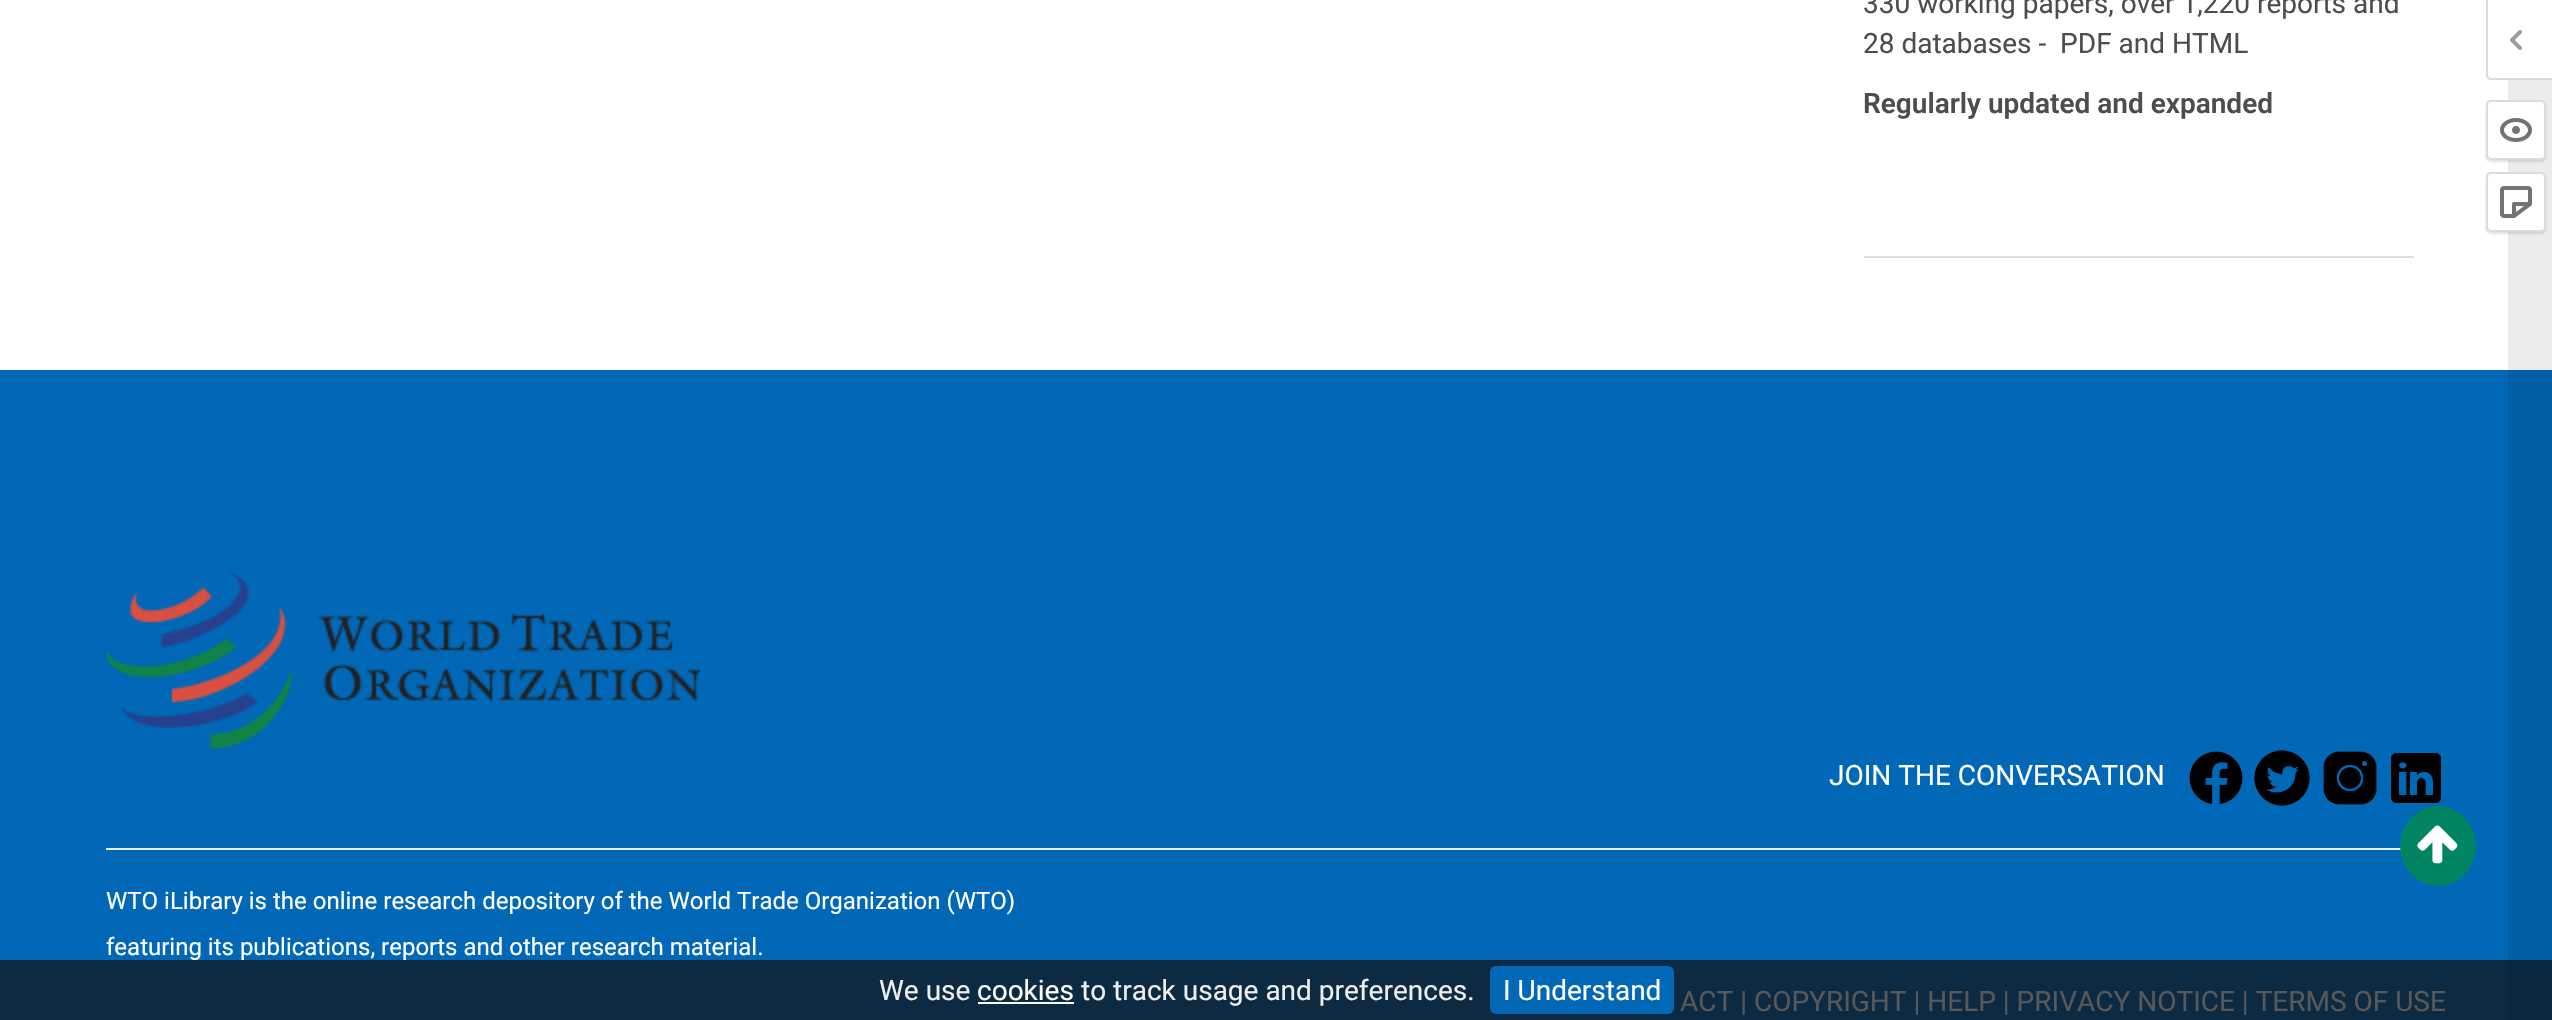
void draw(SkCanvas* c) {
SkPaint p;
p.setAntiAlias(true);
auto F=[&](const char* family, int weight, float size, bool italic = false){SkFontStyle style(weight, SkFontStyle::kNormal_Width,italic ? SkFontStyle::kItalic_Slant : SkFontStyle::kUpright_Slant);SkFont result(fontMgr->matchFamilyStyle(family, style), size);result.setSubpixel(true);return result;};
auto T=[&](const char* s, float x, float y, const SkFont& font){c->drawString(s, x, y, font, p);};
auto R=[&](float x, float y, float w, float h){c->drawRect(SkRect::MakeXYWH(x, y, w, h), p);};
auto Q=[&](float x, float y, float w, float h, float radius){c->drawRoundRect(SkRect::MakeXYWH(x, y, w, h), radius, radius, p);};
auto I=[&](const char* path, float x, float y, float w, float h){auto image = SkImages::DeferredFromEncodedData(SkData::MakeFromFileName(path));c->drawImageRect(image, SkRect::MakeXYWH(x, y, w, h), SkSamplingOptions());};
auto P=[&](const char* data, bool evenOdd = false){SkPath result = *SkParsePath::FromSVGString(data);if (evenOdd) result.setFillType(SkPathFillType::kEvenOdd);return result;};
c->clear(0xffffffff);
p.setColor(0xffebebeb);
R(2508,80,44,290);
auto f1 = F("Roboto",400,28);
p.setColor(0xff4d4d4d);
T("330 working papers, over 1,220 reports and",1863,13,f1);
T("28 databases -  PDF and HTML",1863,53,f1);
auto f2 = F("Roboto",600,28);
T("Regularly updated and expanded",1863,113,f2);
p.setColor(0xffdddddd);
R(1864,256,550,2);
p.setColor(0xff0068b6);
R(0,370,2508,590);
p.setColor(0xff0060a7);
R(2508,370,44,590);
p.setColor(0xff0c2b43);
R(0,960,2508,60);
p.setColor(0xff0b283e);
R(2508,960,44,60);
I("1.png",106,572,594,176);
p.setColor(0xffffffff);
T("JOIN THE CONVERSATION",1829,785,f1);
I("2.png",2189,751,54,54);
I("3.png",2254,750,56,56);
I("4.png",2323,751,54,54);
I("5.png",2391,753,50,50);
p.setColor(0xffeeeeee);
R(106,848,2295,2);
auto f3 = F("Roboto",400,24);
p.setColor(0xffffffff);
T("WTO iLibrary is the online research depository of the World Trade Organization (WTO)",106,909,f3);
T("featuring its publications, reports and other research material.",106,955,f3);
p.setColor(0xff585858);
T("ACT | COPYRIGHT | HELP | PRIVACY NOTICE | TERMS OF USE",1680,1011,f1);
p.setColor(0xff008461);
c->drawOval(SkRect::MakeXYWH(2400,806,76,80),p);
I("6.png",2417,825,41,39);
p.setColor(0xffdbdbdb);
c->drawPath(P("M2486 0h66v80h-61c-3 0-5-2-5-5zm2 0h64v78h-61c-2 0-3-1-3-3z",true),p);
I("7.png",2510,30,12,20);
p.setColor(0x1a000000);
p.setMaskFilter(SkMaskFilter::MakeBlur(kNormal_SkBlurStyle, 1));
c->drawRoundRect(SkRect::MakeXYWH(2486,102,60,60),5,5,p);
p.setMaskFilter(nullptr);
p.setColor(0xffffffff);
c->drawRoundRect(SkRect::MakeXYWH(2487,101,58,58),4,4,p);
p.setStroke(true);
p.setStrokeWidth(2);
p.setColor(0xffdbdbdb);
c->drawRoundRect(SkRect::MakeXYWH(2487,101,58,58),4,4,p);
I("8.png",2500,118,32,24);
p.setStroke(false);
p.setColor(0x1a000000);
p.setMaskFilter(SkMaskFilter::MakeBlur(kNormal_SkBlurStyle, 1));
c->drawRoundRect(SkRect::MakeXYWH(2486,174,60,60),5,5,p);
p.setMaskFilter(nullptr);
p.setColor(0xffffffff);
c->drawRoundRect(SkRect::MakeXYWH(2487,173,58,58),4,4,p);
p.setStroke(true);
p.setColor(0xffdbdbdb);
c->drawRoundRect(SkRect::MakeXYWH(2487,173,58,58),4,4,p);
I("9.png",2500,186,32,32);
p.setStroke(false);
p.setColor(0xffeeeeee);
T("We use",879,1000,f1);
p.setColor(0xffffffff);
T("cookies",977,1000,f1);
R(978,1002,96,2);
p.setColor(0xffeeeeee);
T("to track usage and preferences.",1081,1000,f1);
p.setColor(0xff0068b6);
Q(1490,966,184,48,6);
p.setColor(0xffffffff);
T("I Understand",1503,1000,f1);
}
